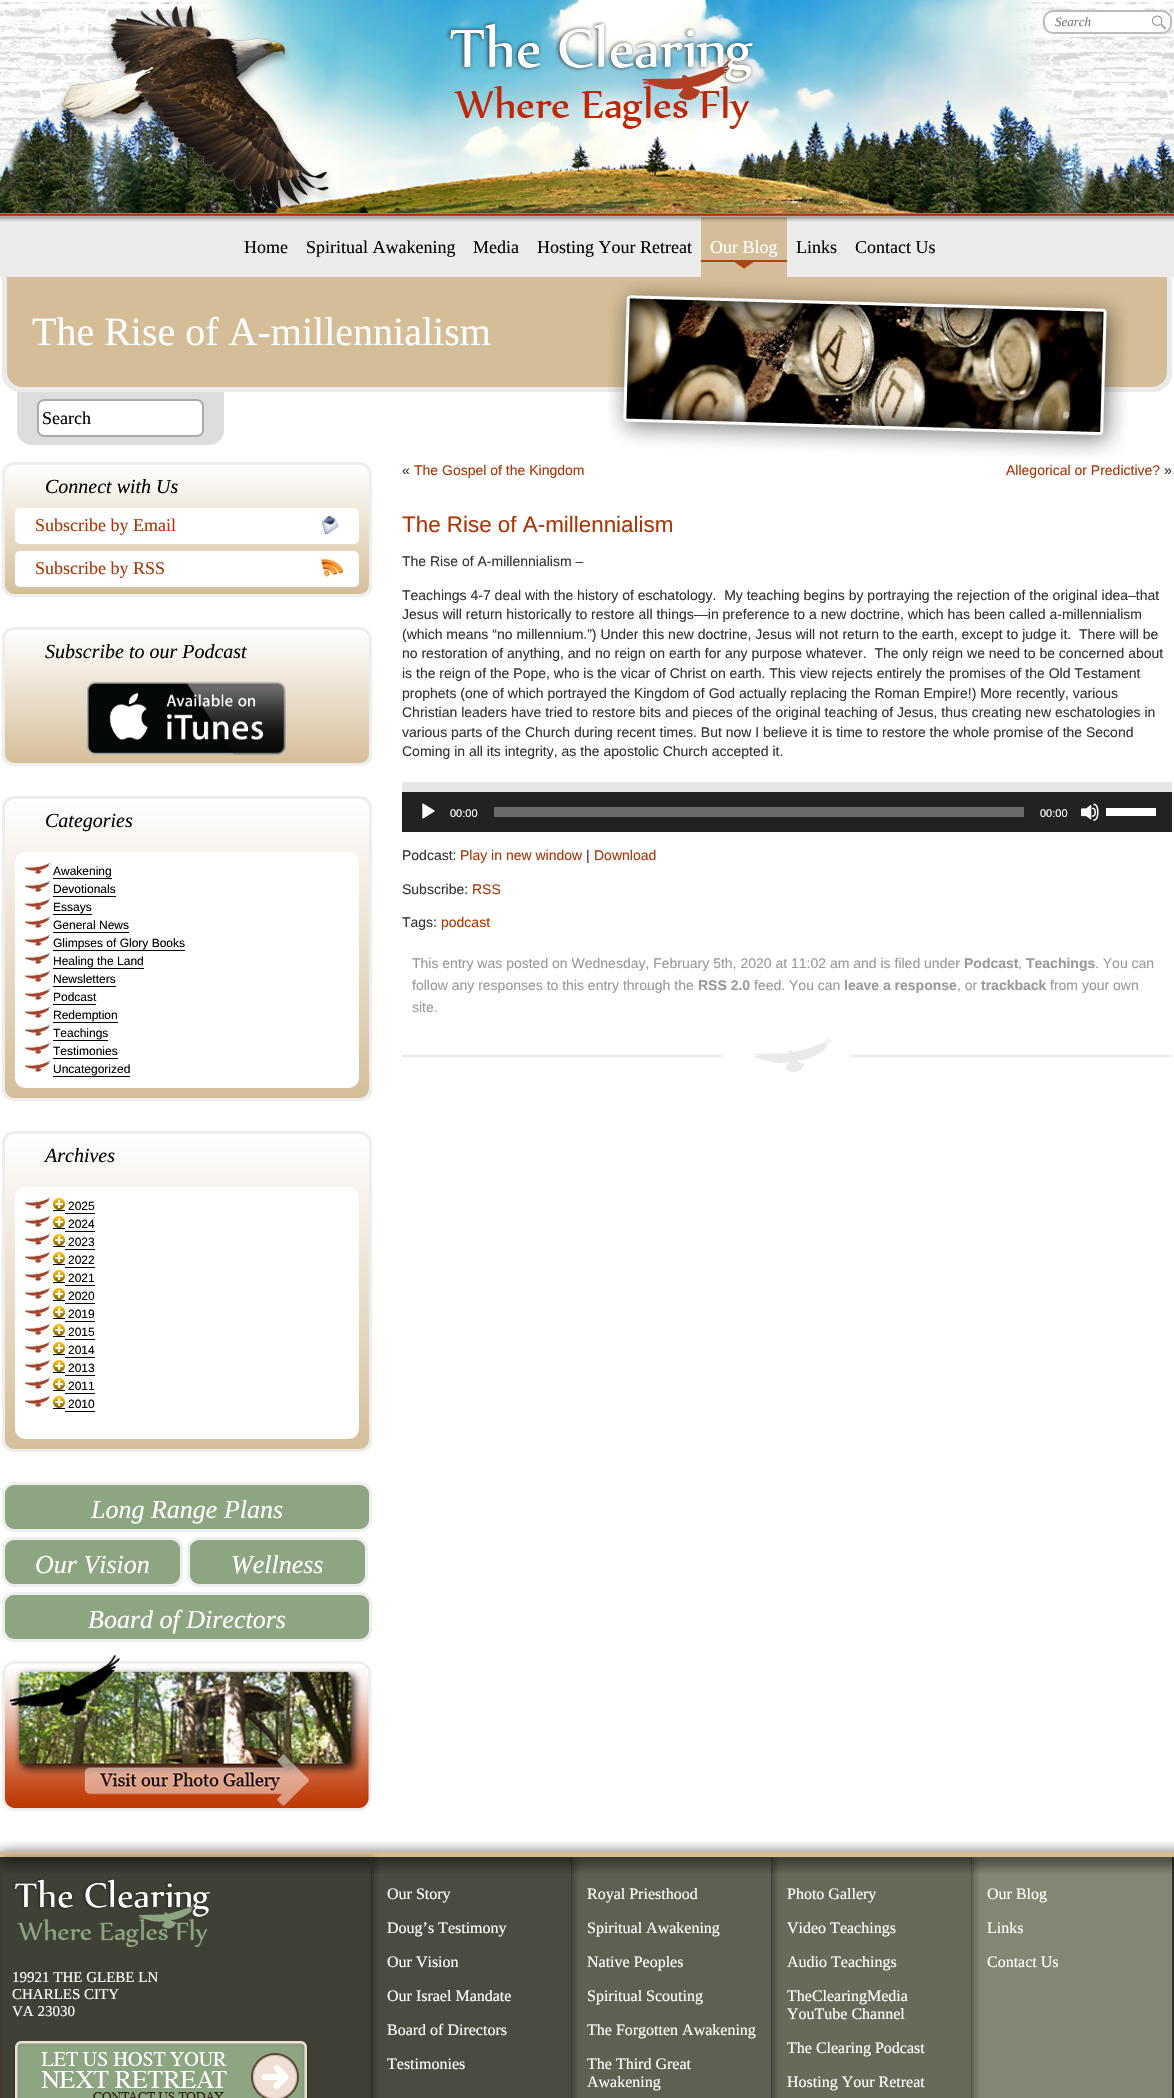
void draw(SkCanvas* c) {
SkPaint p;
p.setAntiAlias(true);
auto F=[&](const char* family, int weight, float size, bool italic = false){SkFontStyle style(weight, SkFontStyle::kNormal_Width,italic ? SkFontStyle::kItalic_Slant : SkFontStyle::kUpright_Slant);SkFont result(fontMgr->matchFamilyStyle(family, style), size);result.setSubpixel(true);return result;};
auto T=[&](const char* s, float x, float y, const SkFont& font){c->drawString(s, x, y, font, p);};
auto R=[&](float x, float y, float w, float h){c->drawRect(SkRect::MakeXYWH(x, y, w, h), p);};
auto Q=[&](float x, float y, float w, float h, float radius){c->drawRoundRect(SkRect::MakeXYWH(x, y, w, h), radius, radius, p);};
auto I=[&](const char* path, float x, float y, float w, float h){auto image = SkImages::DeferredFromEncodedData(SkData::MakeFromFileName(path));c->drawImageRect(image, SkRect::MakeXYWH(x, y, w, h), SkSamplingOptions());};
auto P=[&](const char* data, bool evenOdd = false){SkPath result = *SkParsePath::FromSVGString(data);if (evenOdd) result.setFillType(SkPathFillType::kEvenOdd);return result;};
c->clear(0xffffffff);
p.setColor(0xffebebeb);
R(0,217,1174,60);
p.setColor(0xffd5bd97);
R(701,217,86,60);
I("1.png",0,2,1174,220);
I("2.png",0,0,1174,213);
p.setColor(0xffffffff);
Q(1043,10,129,24,10);
I("3.png",1152,15,14,15);
p.setStroke(true);
p.setStrokeWidth(2);
p.setColor(0xffbbbbbb);
c->drawRoundRect(SkRect::MakeXYWH(1044,11,127,22),9,9,p);
auto f1 = F("Liberation Serif",400,13,true);
p.setStroke(false);
p.setColor(0xff757575);
T("Search",1055,26,f1);
auto f2 = F("Liberation Serif",400,18);
p.setColor(0xff000000);
T("Home",244,253,f2);
T("Spiritual Awakening",306,253,f2);
T("Media",473,253,f2);
T("Hosting Your Retreat",537,253,f2);
I("4.png",734,262,20,7);
p.setColor(0xffffffff);
T("Our Blog",710,253,f2);
p.setColor(0xffb04214);
R(701,260,86,2);
p.setColor(0xff000000);
T("Links",796,253,f2);
T("Contact Us",855,253,f2);
p.setColor(0xffd5bd97);
c->drawPath(P("M2 277h1170v95c0 11-9 20-20 20h-1130c-11 0-20-9-20-20z"),p);
p.setColor(0xffebebeb);
c->drawPath(P("M2 277h1170v95c0 11-9 20-20 20h-1130c-11 0-20-9-20-20zm5 0h1160v95c0 8-7 15-15 15h-1130c-8 0-15-7-15-15z",true),p);
auto f3 = F("Liberation Serif",400,40);
p.setColor(0xffffffff);
T("The Rise of A-millennialism",32,345,f3);
I("5.png",608,281,520,176);
p.setColor(0xffdddddd);
c->drawPath(P("M17 392h207v38c0 8.5-6.5 15-15 15h-177c-8.5 0-15-6.5-15-15z"),p);
I("6.png",37,399,167,38);
p.setColor(0xff000000);
T("Search",42,424,f2);
auto f4 = F("Liberation Sans",400,14);
p.setColor(0xff333333);
T("«",402,475,f4);
p.setColor(0xffac3506);
T("The Gospel of the Kingdom",414,475,f4);
T("Allegorical or Predictive?",1006,475,f4);
p.setColor(0xff333333);
T("»",1164,475,f4);
c->save();
c->clipPath(P("M14 462h346c6.5 0 12 5.5 12 12v111c0 6.5-5.5 12-12 12h-346c-6.5 0-12-5.5-12-12v-111c0-6.5 5.5-12 12-12z"),true);
{
const SkColor colors[] = {0xffffffff,0xffd5be98};
const float stops[] = {0,1};
const SkPoint ends[] = {{187,465}, {187,594}};
p.setShader(SkGradientShader::MakeLinear(ends, colors, stops, 2, SkTileMode::kClamp));
p.setAlpha(255);
}
R(2,465,370,129);
c->restore();
p.setStroke(true);
p.setStrokeWidth(3);
p.setShader(nullptr);
p.setColor(0xffeeeeee);
c->drawRoundRect(SkRect::MakeXYWH(3.5,463.5,367,132),10.5,10.5,p);
auto f5 = F("Liberation Serif",400,20,true);
p.setStroke(false);
p.setColor(0xff000000);
T("Connect with Us",45,493,f5);
p.setColor(0xffffffff);
Q(15,508,344,36,5);
I("7.png",321,516,18,18);
p.setColor(0xffac3506);
T("Subscribe by Email",35,531,f2);
p.setColor(0xffffffff);
Q(15,551,344,36,5);
I("8.png",321,559,22,18);
p.setColor(0xffac3506);
T("Subscribe by RSS",35,574,f2);
c->save();
c->clipPath(P("M14 627h346c6.5 0 12 5.5 12 12v115c0 6.5-5.5 12-12 12h-346c-6.5 0-12-5.5-12-12v-115c0-6.5 5.5-12 12-12z"),true);
{
const SkColor colors[] = {0xffffffff,0xffd5be98};
const float stops[] = {0,1};
const SkPoint ends[] = {{187,630}, {187,763}};
p.setShader(SkGradientShader::MakeLinear(ends, colors, stops, 2, SkTileMode::kClamp));
p.setAlpha(255);
}
R(2,630,370,133);
c->restore();
p.setStroke(true);
p.setShader(nullptr);
p.setColor(0xffeeeeee);
c->drawRoundRect(SkRect::MakeXYWH(3.5,628.5,367,136),10.5,10.5,p);
p.setStroke(false);
p.setColor(0xff000000);
T("Subscribe to our Podcast",45,658,f5);
I("9.png",87,681,199,74);
c->save();
c->clipPath(P("M14 796h346c6.5 0 12 5.5 12 12v281c0 6.5-5.5 12-12 12h-346c-6.5 0-12-5.5-12-12v-281c0-6.5 5.5-12 12-12z"),true);
{
const SkColor colors[] = {0xffffffff,0xffd5be98};
const float stops[] = {0,1};
const SkPoint ends[] = {{187,799}, {187,1098}};
p.setShader(SkGradientShader::MakeLinear(ends, colors, stops, 2, SkTileMode::kClamp));
p.setAlpha(255);
}
R(2,799,370,299);
c->restore();
p.setStroke(true);
p.setShader(nullptr);
p.setColor(0xffeeeeee);
c->drawRoundRect(SkRect::MakeXYWH(3.5,797.5,367,302),10.5,10.5,p);
p.setStroke(false);
p.setColor(0xff000000);
T("Categories",45,827,f5);
p.setColor(0xffffffff);
Q(15,852,344,236,10);
I("10.png",25,862,26,12);
auto f6 = F("Liberation Sans",400,12);
p.setColor(0xff000000);
T("Awakening",53,875,f6);
R(53,878,59,1);
I("10.png",25,880,26,12);
T("Devotionals",53,893,f6);
R(53,896,63,1);
I("10.png",25,898,26,12);
T("Essays",53,911,f6);
R(53,914,39,1);
I("10.png",25,916,26,12);
T("General News",53,929,f6);
R(53,932,76,1);
I("10.png",25,934,26,12);
T("Glimpses of Glory Books",53,947,f6);
R(53,950,132,1);
I("10.png",25,952,26,12);
T("Healing the Land",53,965,f6);
R(53,968,91,1);
I("10.png",25,970,26,12);
T("Newsletters",53,983,f6);
R(53,986,63,1);
I("10.png",25,988,26,12);
T("Podcast",53,1001,f6);
R(53,1004,43,1);
I("10.png",25,1006,26,12);
T("Redemption",53,1019,f6);
R(53,1022,65,1);
I("10.png",25,1024,26,12);
T("Teachings",53,1037,f6);
R(53,1040,55,1);
I("10.png",25,1042,26,12);
T("Testimonies",53,1055,f6);
R(53,1058,65,1);
I("10.png",25,1060,26,12);
T("Uncategorized",53,1073,f6);
R(53,1076,77,1);
c->save();
c->clipPath(P("M14 1131h346c6.5 0 12 5.5 12 12v297c0 6.5-5.5 12-12 12h-346c-6.5 0-12-5.5-12-12v-297c0-6.5 5.5-12 12-12z"),true);
{
const SkColor colors[] = {0xffffffff,0xffd5be98};
const float stops[] = {0,1};
const SkPoint ends[] = {{187,1134}, {187,1449}};
p.setShader(SkGradientShader::MakeLinear(ends, colors, stops, 2, SkTileMode::kClamp));
p.setAlpha(255);
}
R(2,1134,370,315);
c->restore();
p.setStroke(true);
p.setShader(nullptr);
p.setColor(0xffeeeeee);
c->drawRoundRect(SkRect::MakeXYWH(3.5,1132.5,367,318),10.5,10.5,p);
p.setStroke(false);
p.setColor(0xff000000);
T("Archives",45,1162,f5);
p.setColor(0xffffffff);
Q(15,1187,344,252,10);
I("10.png",25,1197,26,12);
I("11.png",53,1198,12,12);
p.setColor(0xff000000);
T("2025",68,1210,f6);
R(53,1210,12,1);
R(65,1213,30,1);
I("10.png",25,1215,26,12);
I("11.png",53,1216,12,12);
T("2024",68,1228,f6);
R(53,1228,12,1);
R(65,1231,30,1);
I("10.png",25,1233,26,12);
I("11.png",53,1234,12,12);
T("2023",68,1246,f6);
R(53,1246,12,1);
R(65,1249,30,1);
I("10.png",25,1251,26,12);
I("11.png",53,1252,12,12);
T("2022",68,1264,f6);
R(53,1264,12,1);
R(65,1267,30,1);
I("10.png",25,1269,26,12);
I("11.png",53,1270,12,12);
T("2021",68,1282,f6);
R(53,1282,12,1);
R(65,1285,30,1);
I("10.png",25,1287,26,12);
I("11.png",53,1288,12,12);
T("2020",68,1300,f6);
R(53,1300,12,1);
R(65,1303,30,1);
I("10.png",25,1305,26,12);
I("11.png",53,1306,12,12);
T("2019",68,1318,f6);
R(53,1318,12,1);
R(65,1321,30,1);
I("10.png",25,1323,26,12);
I("11.png",53,1324,12,12);
T("2015",68,1336,f6);
R(53,1336,12,1);
R(65,1339,30,1);
I("10.png",25,1341,26,12);
I("11.png",53,1342,12,12);
T("2014",68,1354,f6);
R(53,1354,12,1);
R(65,1357,30,1);
I("10.png",25,1359,26,12);
I("11.png",53,1360,12,12);
T("2013",68,1372,f6);
R(53,1372,12,1);
R(65,1375,30,1);
I("10.png",25,1377,26,12);
I("11.png",53,1378,12,12);
T("2011",68,1390,f6);
R(53,1390,12,1);
R(65,1393,30,1);
I("10.png",25,1395,26,12);
I("11.png",53,1396,12,12);
T("2010",68,1408,f6);
R(53,1408,12,1);
R(65,1411,30,1);
p.setColor(0xff8da681);
c->drawRoundRect(SkRect::MakeXYWH(3.5,1483.5,367,47),10.5,10.5,p);
p.setStroke(true);
p.setColor(0xffeeeeee);
c->drawRoundRect(SkRect::MakeXYWH(3.5,1483.5,367,47),10.5,10.5,p);
auto f7 = F("Liberation Serif",400,26,true);
p.setStroke(false);
p.setColor(0xffffffff);
T("Long Range Plans",91,1518,f7);
p.setColor(0xff8da681);
c->drawRoundRect(SkRect::MakeXYWH(3.5,1538.5,178,47),10.5,10.5,p);
p.setStroke(true);
p.setColor(0xffeeeeee);
c->drawRoundRect(SkRect::MakeXYWH(3.5,1538.5,178,47),10.5,10.5,p);
p.setStroke(false);
p.setColor(0xffffffff);
T("Our Vision",35,1573,f7);
p.setColor(0xff8da681);
c->drawRoundRect(SkRect::MakeXYWH(188.5,1538.5,178,47),10.5,10.5,p);
p.setStroke(true);
p.setColor(0xffeeeeee);
c->drawRoundRect(SkRect::MakeXYWH(188.5,1538.5,178,47),10.5,10.5,p);
p.setStroke(false);
p.setColor(0xffffffff);
T("Wellness",231,1573,f7);
p.setColor(0xff8da681);
c->drawRoundRect(SkRect::MakeXYWH(3.5,1593.5,367,47),10.5,10.5,p);
p.setStroke(true);
p.setColor(0xffeeeeee);
c->drawRoundRect(SkRect::MakeXYWH(3.5,1593.5,367,47),10.5,10.5,p);
p.setStroke(false);
p.setColor(0xffffffff);
T("Board of Directors",88,1628,f7);
I("12.png",2,1654,370,157);
I("13.png",402,1038,770,34);
auto f8 = F("Liberation Sans",400,22.4);
p.setColor(0xffac3506);
T("The Rise of A-millennialism",402,532,f8);
p.setColor(0xff333333);
T("The Rise of A-millennialism –",402,566,f4);
T("Teachings 4-7 deal with the history of eschatology.  My teaching begins by portraying the rejection of the original idea–that",402,600,f4);
T("Jesus will return historically to restore all things—in preference to a new doctrine, which has been called a-millennialism",402,619,f4);
T("(which means “no millennium.”) Under this new doctrine, Jesus will not return to the earth, except to judge it.  There will be",402,639,f4);
T("no restoration of anything, and no reign on earth for any purpose whatever.  The only reign we need to be concerned about",402,658,f4);
T("is the reign of the Pope, who is the vicar of Christ on earth. This view rejects entirely the promises of the Old Testament",402,678,f4);
T("prophets (one of which portrayed the Kingdom of God actually replacing the Roman Empire!) More recently, various",402,698,f4);
T("Christian leaders have tried to restore bits and pieces of the original teaching of Jesus, thus creating new eschatologies in",402,717,f4);
T("various parts of the Church during recent times. But now I believe it is time to restore the whole promise of the Second",402,737,f4);
T("Coming in all its integrity, as the apostolic Church accepted it.",402,756,f4);
p.setColor(0xffe5e5e5);
R(402,782,770,10);
p.setColor(0xff222222);
R(402,792,770,40);
I("14.png",422,803,13,16);
auto f9 = F("Liberation Sans",400,11);
p.setColor(0xffffffff);
T("00:00",450,817,f9);
p.setColor(0xff6b6b6b);
R(494,807,530,10);
p.setColor(0xffffffff);
T("00:00",1040,817,f9);
I("15.png",1081,803,18,18);
R(1106,808,50,8);
p.setColor(0xff333333);
T("Podcast:",402,860,f4);
p.setColor(0xffac3506);
T("Play in new window",460,860,f4);
p.setColor(0xff333333);
T("|",586,860,f4);
p.setColor(0xffac3506);
T("Download",594,860,f4);
p.setColor(0xff333333);
T("Subscribe:",402,894,f4);
p.setColor(0xffac3506);
T("RSS",472,894,f4);
p.setColor(0xff333333);
T("Tags:",402,927,f4);
p.setColor(0xffac3506);
T("podcast",441,927,f4);
p.setColor(0xff999999);
T("This entry was posted on Wednesday, February 5th, 2020 at 11:02 am and is filed under",412,968,f4);
auto f10 = F("Liberation Sans",700,14);
T("Podcast",964,968,f10);
T(",",1018,968,f4);
T("Teachings",1026,968,f10);
T(". You can",1095,968,f4);
T("follow any responses to this entry through the",412,990,f4);
T("RSS 2.0",698,990,f10);
T("feed. You can",754,990,f4);
T("leave a response",844,990,f10);
T(", or",957,990,f4);
T("trackback",981,990,f10);
T("from your own",1050,990,f4);
T("site.",412,1012,f4);
p.setColor(0xff3f4036);
R(0,1857,1174,241);
p.setColor(0x4d000000);
p.setMaskFilter(SkMaskFilter::MakeBlur(kNormal_SkBlurStyle, 3));
c->drawRect(SkRect::MakeXYWH(975,1857,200,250),p);
p.setMaskFilter(nullptr);
p.setColor(0xff848673);
R(972,1857,200,241);
p.setColor(0x4d000000);
p.setMaskFilter(SkMaskFilter::MakeBlur(kNormal_SkBlurStyle, 3));
c->drawRect(SkRect::MakeXYWH(775,1857,200,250),p);
p.setMaskFilter(nullptr);
p.setColor(0xff686a59);
R(772,1857,199,241);
p.setColor(0x4d000000);
p.setMaskFilter(SkMaskFilter::MakeBlur(kNormal_SkBlurStyle, 3));
c->drawRect(SkRect::MakeXYWH(575,1857,200,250),p);
p.setMaskFilter(nullptr);
p.setColor(0xff5f6052);
R(572,1857,199,241);
p.setColor(0x4d000000);
p.setMaskFilter(SkMaskFilter::MakeBlur(kNormal_SkBlurStyle, 3));
c->drawRect(SkRect::MakeXYWH(375,1857,200,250),p);
p.setMaskFilter(nullptr);
p.setColor(0xff4b4c41);
R(372,1857,199,241);
p.setColor(0xff3b3c33);
R(571,1857,1,241);
p.setColor(0xff3c3e34);
R(771,1857,1,241);
p.setColor(0xff525448);
R(971,1857,1,241);
I("16.png",0,1841,1174,33);
c->save();
c->clipPath(P("M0 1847h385v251h-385zm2 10h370v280h-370z",true),true);
p.setColor(0x4d000000);
p.setMaskFilter(SkMaskFilter::MakeBlur(kNormal_SkBlurStyle, 3));
c->drawRect(SkRect::MakeXYWH(5,1857,370,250),p);
p.setMaskFilter(nullptr);
c->restore();
p.setColor(0xff2c2c26);
R(371,1857,1,241);
I("17.png",13,1878,197,69);
auto f11 = F("Liberation Serif",400,15);
p.setColor(0xffffffff);
T("19921 THE GLEBE LN",12,1982,f11);
T("CHARLES CITY",12,1999,f11);
T("VA 23030",12,2016,f11);
I("18.png",13,2041,296,57);
auto f12 = F("Liberation Serif",400,16);
T("Our Story",387,1899,f12);
T("Doug’s Testimony",387,1933,f12);
T("Our Vision",387,1967,f12);
T("Our Israel Mandate",387,2001,f12);
T("Board of Directors",387,2035,f12);
T("Testimonies",387,2069,f12);
T("Royal Priesthood",587,1899,f12);
T("Spiritual Awakening",587,1933,f12);
T("Native Peoples",587,1967,f12);
T("Spiritual Scouting",587,2001,f12);
T("The Forgotten Awakening",587,2035,f12);
T("The Third Great",587,2069,f12);
T("Awakening",587,2087,f12);
T("Photo Gallery",787,1899,f12);
T("Video Teachings",787,1933,f12);
T("Audio Teachings",787,1967,f12);
T("TheClearingMedia",787,2001,f12);
T("YouTube Channel",787,2019,f12);
T("The Clearing Podcast",787,2053,f12);
T("Hosting Your Retreat",787,2087,f12);
T("Our Blog",987,1899,f12);
T("Links",987,1933,f12);
T("Contact Us",987,1967,f12);
}
